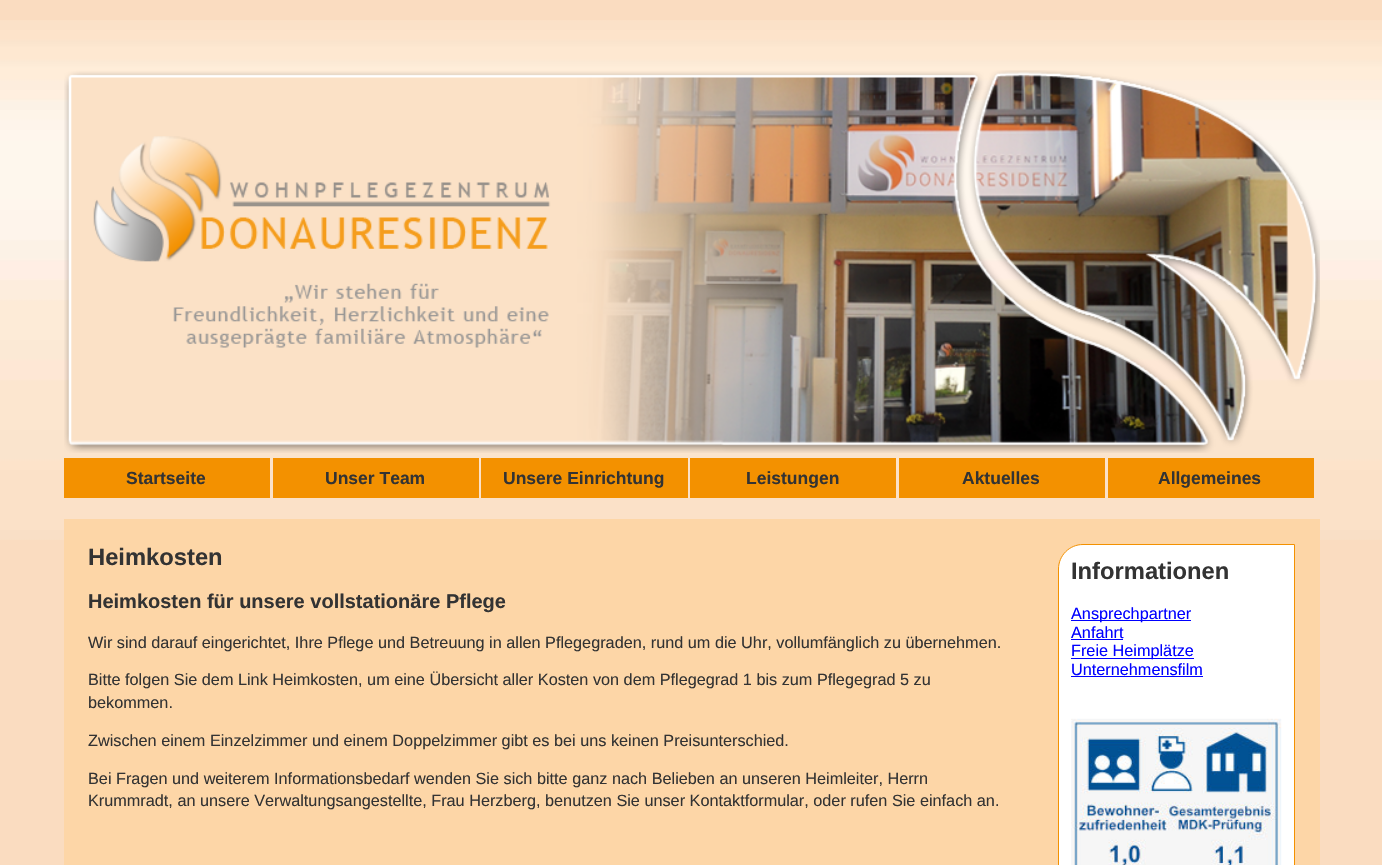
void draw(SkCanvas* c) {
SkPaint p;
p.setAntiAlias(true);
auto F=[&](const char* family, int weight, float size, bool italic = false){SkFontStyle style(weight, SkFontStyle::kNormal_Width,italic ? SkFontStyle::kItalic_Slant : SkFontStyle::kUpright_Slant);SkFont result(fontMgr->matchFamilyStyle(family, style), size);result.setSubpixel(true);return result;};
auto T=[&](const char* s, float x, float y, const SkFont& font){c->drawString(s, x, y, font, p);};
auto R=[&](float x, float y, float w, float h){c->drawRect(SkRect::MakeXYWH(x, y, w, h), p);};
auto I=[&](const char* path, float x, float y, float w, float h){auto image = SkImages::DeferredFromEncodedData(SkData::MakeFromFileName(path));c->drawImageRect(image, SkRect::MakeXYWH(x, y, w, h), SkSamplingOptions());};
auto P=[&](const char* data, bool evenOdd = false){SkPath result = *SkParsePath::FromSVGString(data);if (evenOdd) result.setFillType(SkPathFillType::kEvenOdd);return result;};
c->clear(0xfffadcc0);
I("1.png",0,20,1382,520);
I("2.png",64,70,1256,383);
p.setColor(0xfff39100);
R(64,458,206,40);
auto f1 = F("Liberation Sans",700,17.5);
p.setColor(0xff333333);
T("Startseite",126,484,f1);
p.setColor(0xfff39100);
R(273,458,206,40);
p.setColor(0xff333333);
T("Unser Team",325,484,f1);
p.setColor(0xfff39100);
R(481,458,207,40);
p.setColor(0xff333333);
T("Unsere Einrichtung",503,484,f1);
p.setColor(0xfff39100);
R(690,458,206,40);
p.setColor(0xff333333);
T("Leistungen",746,484,f1);
p.setColor(0xfff39100);
R(899,458,206,40);
p.setColor(0xff333333);
T("Aktuelles",962,484,f1);
p.setColor(0xfff39100);
R(1108,458,206,40);
p.setColor(0xff333333);
T("Allgemeines",1158,484,f1);
p.setColor(0xfffdd6a7);
R(64,519,1256,346);
auto f2 = F("Liberation Sans",700,23.75);
p.setColor(0xff333333);
T("Heimkosten",88,565,f2);
auto f3 = F("Liberation Sans",700,20);
T("Heimkosten für unsere vollstationäre Pflege",88,608,f3);
auto f4 = F("Liberation Sans",400,16.25);
T("Wir sind darauf eingerichtet, Ihre Pflege und Betreuung in allen Pflegegraden, rund um die Uhr, vollumfänglich zu übernehmen.",88,648,f4);
T("Bitte folgen Sie dem Link Heimkosten, um eine Übersicht aller Kosten von dem Pflegegrad 1 bis zum Pflegegrad 5 zu",88,685,f4);
T("bekommen.",88,708,f4);
T("Zwischen einem Einzelzimmer und einem Doppelzimmer gibt es bei uns keinen Preisunterschied.",88,746,f4);
T("Bei Fragen und weiterem Informationsbedarf wenden Sie sich bitte ganz nach Belieben an unseren Heimleiter, Herrn",88,784,f4);
T("Krummradt, an unsere Verwaltungsangestellte, Frau Herzberg, benutzen Sie unser Kontaktformular, oder rufen Sie einfach an.",88,806,f4);
p.setColor(0xffffffff);
c->drawPath(P("M1083 544.5h211.5v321.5c0 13.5-11 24.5-24.5 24.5h-211.5v-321.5c0-13.5 11-24.5 24.5-24.5z"),p);
p.setStroke(true);
p.setStrokeWidth(1);
p.setColor(0xfff39100);
c->drawPath(P("M1083 544.5h211.5v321.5c0 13.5-11 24.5-24.5 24.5h-211.5v-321.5c0-13.5 11-24.5 24.5-24.5z"),p);
p.setStroke(false);
p.setColor(0xff333333);
T("Informationen",1071,579,f2);
p.setColor(0xff0000ff);
R(1071,620,120,1);
T("Ansprechpartner",1071,619,f4);
T("Anfahrt",1071,638,f4);
R(1071,639,52,1);
R(1071,658,123,1);
T("Freie Heimplätze",1071,656,f4);
T("Unternehmensfilm",1071,675,f4);
R(1071,676,132,1);
I("3.png",1071,718,211,147);
}
